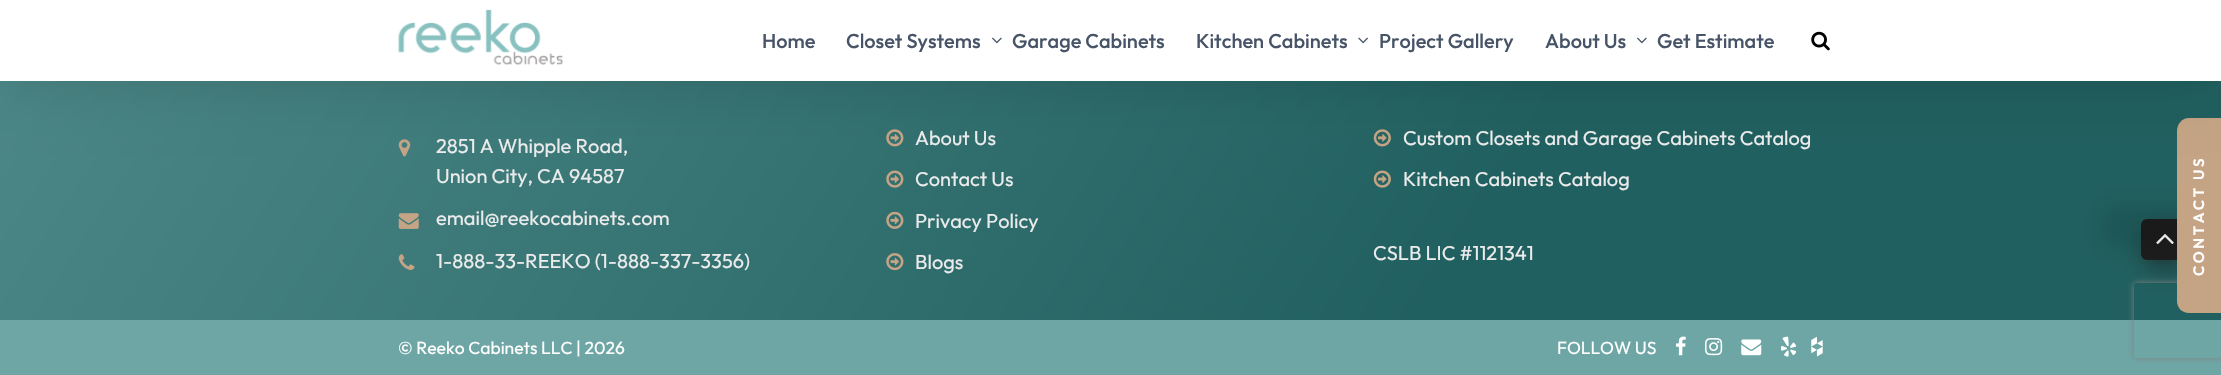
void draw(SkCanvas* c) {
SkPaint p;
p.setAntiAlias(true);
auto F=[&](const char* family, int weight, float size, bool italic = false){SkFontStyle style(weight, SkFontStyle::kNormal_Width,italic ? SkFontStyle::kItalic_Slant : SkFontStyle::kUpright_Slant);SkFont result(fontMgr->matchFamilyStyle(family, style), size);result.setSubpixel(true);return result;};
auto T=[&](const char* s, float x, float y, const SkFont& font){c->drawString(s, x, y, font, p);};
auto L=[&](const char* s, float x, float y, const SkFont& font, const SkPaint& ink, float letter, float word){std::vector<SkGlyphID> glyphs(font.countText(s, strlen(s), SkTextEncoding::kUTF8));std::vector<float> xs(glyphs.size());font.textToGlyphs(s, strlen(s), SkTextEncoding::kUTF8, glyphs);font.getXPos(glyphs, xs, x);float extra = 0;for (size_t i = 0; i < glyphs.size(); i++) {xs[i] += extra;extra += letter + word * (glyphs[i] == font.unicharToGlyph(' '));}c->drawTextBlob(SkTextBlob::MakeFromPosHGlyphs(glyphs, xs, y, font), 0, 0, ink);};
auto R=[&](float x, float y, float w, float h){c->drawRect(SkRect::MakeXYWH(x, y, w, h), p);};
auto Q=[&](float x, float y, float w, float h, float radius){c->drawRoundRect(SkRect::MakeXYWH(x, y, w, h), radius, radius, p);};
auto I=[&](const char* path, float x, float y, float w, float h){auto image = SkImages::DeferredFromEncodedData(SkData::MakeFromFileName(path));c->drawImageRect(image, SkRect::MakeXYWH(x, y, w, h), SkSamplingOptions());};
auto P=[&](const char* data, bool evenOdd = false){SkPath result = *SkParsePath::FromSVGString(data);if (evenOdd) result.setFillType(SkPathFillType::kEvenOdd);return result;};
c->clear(0xffffffff);
{
const SkColor colors[] = {0xff6ea6a6,0xff216060};
const float stops[] = {0,.77};
const SkPoint ends[] = {{-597,-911}, {1973,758}};
p.setShader(SkGradientShader::MakeLinear(ends, colors, stops, 2, SkTileMode::kClamp));
p.setAlpha(255);
}
R(0,81,2221,239);
I("5.png",398,139,13,18);
I("8.png",886,129,18,18);
I("9.png",886,170,18,18);
I("12.png",1373,129,18,18);
I("13.png",1373,170,18,18);
p.setShader(nullptr);
p.setColor(0xff1b1b1b);
p.setMaskFilter(SkMaskFilter::MakeBlur(kNormal_SkBlurStyle, 14.5));
c->drawRect(SkRect::MakeXYWH(2149,236,32,27),p);
p.setMaskFilter(nullptr);
p.setColor(0xff1d1d1d);
Q(2141,219,48,41,6);
I("19.png",2156,234,18,10);
p.setColor(0x1a000000);
p.setMaskFilter(SkMaskFilter::MakeBlur(kNormal_SkBlurStyle, 9.5));
c->drawRoundRect(SkRect::MakeXYWH(2101,204,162,44),13,13,p);
p.setMaskFilter(nullptr);
p.setColor(0xff6ea6a6);
R(0,320,2221,55);
c->save();
c->clipPath(P("M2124 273h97v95h-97zm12.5 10h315c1.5 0 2.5 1 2.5 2.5v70c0 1.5-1 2.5-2.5 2.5h-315c-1.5 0-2.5-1-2.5-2.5v-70c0-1.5 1-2.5 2.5-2.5z",true),true);
p.setColor(0xff808080);
p.setMaskFilter(SkMaskFilter::MakeBlur(kNormal_SkBlurStyle, 3));
c->drawRoundRect(SkRect::MakeXYWH(2134,283,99,75),2.5,2.5,p);
p.setMaskFilter(nullptr);
c->restore();
p.setColor(0xffc4a484);
c->drawPath(P("M2177 301v-170c0-7 5-13 12-13h32v195h-32c-7 0-12-5-12-12z"),p);
p.setColor(0x26000000);
p.setMaskFilter(SkMaskFilter::MakeBlur(kNormal_SkBlurStyle, 31));
c->drawRect(SkRect::MakeXYWH(0,0,2221,81),p);
p.setMaskFilter(nullptr);
p.setColor(0xffffffff);
R(0,0,2221,81);
I("1.png",398,9,165,56);
auto f1 = F("Outfit",500,20);
p.setColor(0xff475467);
T("Home",762,48,f1);
T("Closet Systems",846,48,f1);
I("2.png",992,37,10,7);
T("Garage Cabinets",1012,48,f1);
T("Kitchen Cabinets",1196,48,f1);
I("3.png",1358,37,10,7);
T("Project Gallery",1379,48,f1);
T("About Us",1545,48,f1);
I("2.png",1637,37,10,7);
T("Get Estimate",1657,48,f1);
I("4.png",1811,31,19,20);
auto f2 = F("Outfit",400,20);
p.setColor(0xffebebeb);
T("2851 A Whipple Road,",436,153,f2);
T("Union City, CA 94587",436,183,f2);
I("6.png",398,213,21,16);
T("email@reekocabinets.com",436,225,f2);
I("7.png",398,254,17,16);
T("1-888-33-REEKO (1-888-337-3356)",436,268,f2);
T("About Us",915,145,f2);
T("Contact Us",915,186,f2);
I("10.png",886,211,18,18);
T("Privacy Policy",915,228,f2);
I("11.png",886,253,18,18);
T("Blogs",915,269,f2);
T("Custom Closets and Garage Cabinets Catalog",1403,145,f2);
T("Kitchen Cabinets Catalog",1403,186,f2);
T("CSLB LIC #1121341",1373,260,f2);
auto f3 = F("Outfit",400,17.5);
p.setColor(0xffffffff);
T("© Reeko Cabinets LLC | 2026",398,354,f3);
T("FOLLOW US",1557,354,f3);
I("14.png",1676,336,10,20);
I("15.png",1705,338,18,18);
I("16.png",1741,339,21,17);
I("17.png",1781,336,16,21);
I("18.png",1811,336,12,21);
auto f4 = F("Outfit",600,15);
c->save();
c->rotate(-90,2204,276);
L("CONTACT US",2204,276,f4,p,2.5,0);
c->restore();
}
